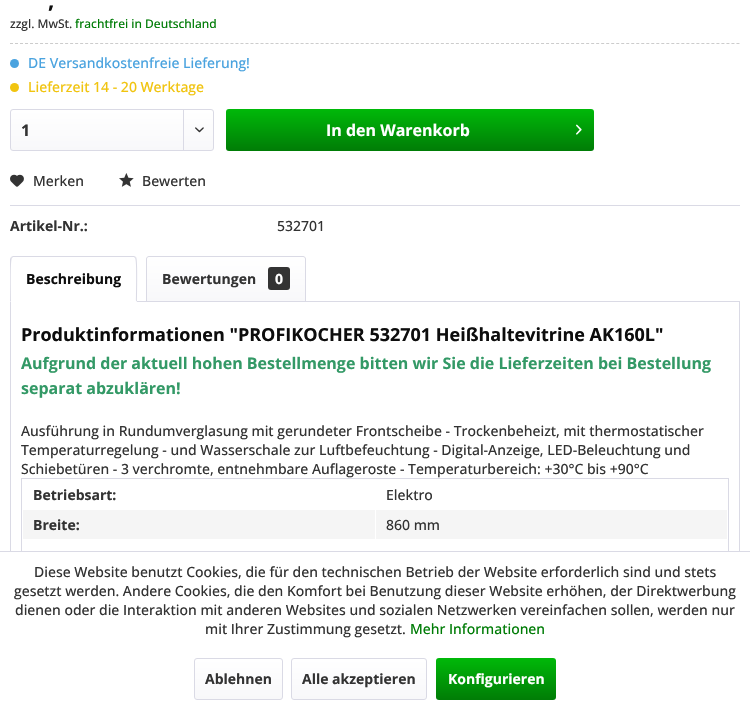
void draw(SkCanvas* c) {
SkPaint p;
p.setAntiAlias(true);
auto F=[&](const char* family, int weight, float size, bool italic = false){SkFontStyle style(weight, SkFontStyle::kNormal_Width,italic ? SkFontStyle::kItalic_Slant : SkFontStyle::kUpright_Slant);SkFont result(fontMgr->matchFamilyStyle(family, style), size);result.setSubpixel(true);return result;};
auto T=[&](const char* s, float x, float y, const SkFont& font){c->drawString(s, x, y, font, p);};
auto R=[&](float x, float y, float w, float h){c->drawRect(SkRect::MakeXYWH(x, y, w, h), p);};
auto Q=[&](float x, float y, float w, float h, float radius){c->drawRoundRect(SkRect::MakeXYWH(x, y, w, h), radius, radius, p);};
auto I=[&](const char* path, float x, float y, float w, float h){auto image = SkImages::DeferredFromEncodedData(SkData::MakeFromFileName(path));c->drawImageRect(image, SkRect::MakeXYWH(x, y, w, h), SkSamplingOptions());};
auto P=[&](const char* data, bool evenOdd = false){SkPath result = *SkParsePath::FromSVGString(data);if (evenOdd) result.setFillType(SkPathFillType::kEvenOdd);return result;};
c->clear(0xffffffff);
auto f1 = F("Open Sans",700,22);
p.setColor(0xff0d0d0d);
T(",",48,8,f1);
auto f2 = F("Open Sans",500,12);
p.setColor(0xff333333);
T("zzgl. MwSt.",10,28,f2);
p.setColor(0xff007c06);
T("frachtfrei in Deutschland",75,28,f2);
p.setStroke(true);
p.setStrokeWidth(1);
p.setColor(0xffcccccc);
p.setPathEffect(SkDashPathEffect::Make({{3,2.01f}}, 0));
c->drawPath(P("M10 43.5h730"),p);
p.setPathEffect(nullptr);
p.setStroke(false);
p.setColor(0xff4aa3df);
c->drawCircle(14.5,63.5,4.5,p);
auto f3 = F("Open Sans",500,14);
T("DE Versandkostenfreie Lieferung!",28,68,f3);
p.setColor(0xfff1c40f);
c->drawCircle(14.5,87.5,4.5,p);
T("Lieferzeit 14 - 20 Werktage",28,92,f3);
{
const SkColor colors[] = {0xffffffff,0xfff8f8fa};
const float stops[] = {0,1};
const SkPoint ends[] = {{112,110}, {112,150}};
p.setShader(SkGradientShader::MakeLinear(ends, colors, stops, 2, SkTileMode::kClamp));
p.setAlpha(255);
}
Q(11,110,202,40,2);
p.setStroke(true);
p.setShader(nullptr);
p.setColor(0xffdadae5);
c->drawRoundRect(SkRect::MakeXYWH(10.5,109.5,203,41),2.5,2.5,p);
auto f4 = F("Open Sans",700,16);
p.setStroke(false);
p.setColor(0xff333333);
T("1",21,136,f4);
p.setColor(0xffdadae5);
R(183,110,1,40);
I("1.png",195,127,9,6);
{
const SkColor colors[] = {0xff00b909,0xff007c06};
const float stops[] = {0,1};
const SkPoint ends[] = {{410,109}, {410,151}};
p.setShader(SkGradientShader::MakeLinear(ends, colors, stops, 2, SkTileMode::kClamp));
p.setAlpha(255);
}
Q(226,109,368,42,3);
p.setShader(nullptr);
p.setColor(0xffffffff);
T("In den Warenkorb",326,136,f4);
I("2.png",576,124,6,11);
p.setColor(0xffdadae5);
R(10,205,730,1);
I("3.png",10,174,14,13);
p.setColor(0xff333333);
T("Merken",33,186,f3);
I("4.png",119,173,15,14);
T("Bewerten",142,186,f3);
auto f5 = F("Open Sans",700,14);
T("Artikel-Nr.:",10,231,f5);
T("532701",277,231,f3);
p.setStroke(true);
p.setColor(0xffdadae5);
c->drawRect(SkRect::MakeXYWH(10.5,301.5,729,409),p);
p.setStroke(false);
p.setColor(0xffffffff);
c->drawPath(P("M13 256h121c1.5 0 3 1.5 3 3v43h-127v-43c0-1.5 1.5-3 3-3z"),p);
p.setColor(0xffdadae5);
c->drawPath(P("M13 256l-2 1l1 1l1-1h121l1 1l1-1l-2-1z"),p);
c->drawPath(P("M137 302c0-5 1-43-1-45l-1 1c2 1 1 38 1 43z"),p);
p.setColor(0xffffffff);
c->drawPath(P("M137 302l-1-1h-125l-1 1z"),p);
p.setColor(0xffdadae5);
c->drawPath(P("M10 302l1-1c0-5-1-42 1-43l-1-1l-1 2z"),p);
p.setColor(0xff0d0d0d);
T("Beschreibung",26,284,f5);
{
const SkColor colors[] = {0xffffffff,0xfff8f8fa};
const float stops[] = {0,1};
const SkPoint ends[] = {{226,257}, {226,301}};
p.setShader(SkGradientShader::MakeLinear(ends, colors, stops, 2, SkTileMode::kClamp));
p.setAlpha(255);
}
c->drawPath(P("M149 257h154c1 0 2 1 2 2v42h-158v-42c0-1 1-2 2-2z"),p);
p.setStroke(true);
p.setShader(nullptr);
p.setColor(0xffdadae5);
c->drawPath(P("M149 256.5h154c1.5 0 2.5 1 2.5 2.5v42.5h-159v-42.5c0-1.5 1-2.5 2.5-2.5z"),p);
p.setStroke(false);
p.setColor(0xff333333);
T("Bewertungen",162,284,f5);
Q(268,267,22,23,3);
p.setColor(0xffffffff);
T("0",275,284,f5);
auto f6 = F("Open Sans",700,18);
p.setColor(0xff0d0d0d);
T("Produktinformationen \"PROFIKOCHER 532701 Heißhaltevitrine AK160L\"",21,341,f6);
p.setColor(0xff339966);
T("Aufgrund der aktuell hohen Bestellmenge bitten wir Sie die Lieferzeiten bei Bestellung",21,369,f4);
T("separat abzuklären!",21,394,f4);
p.setColor(0xff333333);
T("Ausführung in Rundumverglasung mit gerundeter Frontscheibe - Trockenbeheizt, mit thermostatischer",21,436,f3);
T("Temperaturregelung - und Wasserschale zur Luftbefeuchtung - Digital-Anzeige, LED-Beleuchtung und",21,455,f3);
T("Schiebetüren - 3 verchromte, entnehmbare Auflageroste - Temperaturbereich: +30°C bis +90°C",21,474,f3);
p.setStroke(true);
p.setColor(0xffdadae5);
c->drawRect(SkRect::MakeXYWH(21.5,478.5,707,152),p);
p.setStroke(false);
p.setColor(0xff333333);
T("Betriebsart:",33,500,f5);
T("Elektro",386,500,f3);
p.setColor(0xfff5f5f5);
R(23,510,352,29);
p.setColor(0xff333333);
T("Breite:",33,530,f5);
p.setColor(0xfff5f5f5);
R(376,510,351,29);
p.setColor(0xff333333);
T("860 mm",386,530,f3);
p.setColor(0xffffffff);
R(10,552,730,158);
p.setColor(0xffdadae5);
R(0,551,750,1);
p.setColor(0xff333333);
T("Diese Website benutzt Cookies, die für den technischen Betrieb der Website erforderlich sind und stets",34,577,f3);
T("gesetzt werden. Andere Cookies, die den Komfort bei Benutzung dieser Website erhöhen, der Direktwerbung",14,596,f3);
T("dienen oder die Interaktion mit anderen Websites und sozialen Netzwerken vereinfachen sollen, werden nur",15,615,f3);
T("mit Ihrer Zustimmung gesetzt.",205,634,f3);
p.setColor(0xff007c06);
T("Mehr Informationen",410,634,f3);
{
const SkColor colors[] = {0xffffffff,0xfff8f8fa};
const float stops[] = {0,1};
const SkPoint ends[] = {{239,659}, {239,699}};
p.setShader(SkGradientShader::MakeLinear(ends, colors, stops, 2, SkTileMode::kClamp));
p.setAlpha(255);
}
Q(195,659,87,40,2);
p.setStroke(true);
p.setShader(nullptr);
p.setColor(0xffdadae5);
c->drawRoundRect(SkRect::MakeXYWH(194.5,658.5,88,41),2.5,2.5,p);
p.setStroke(false);
p.setColor(0xff333333);
T("Ablehnen",205,684,f5);
{
const SkColor colors[] = {0xffffffff,0xfff8f8fa};
const float stops[] = {0,1};
const SkPoint ends[] = {{359,659}, {359,699}};
p.setShader(SkGradientShader::MakeLinear(ends, colors, stops, 2, SkTileMode::kClamp));
p.setAlpha(255);
}
Q(292,659,134,40,2);
p.setStroke(true);
p.setShader(nullptr);
p.setColor(0xffdadae5);
c->drawRoundRect(SkRect::MakeXYWH(291.5,658.5,135,41),2.5,2.5,p);
p.setStroke(false);
p.setColor(0xff333333);
T("Alle akzeptieren",302,684,f5);
{
const SkColor colors[] = {0xff00b909,0xff007c06};
const float stops[] = {0,1};
const SkPoint ends[] = {{496,658}, {496,700}};
p.setShader(SkGradientShader::MakeLinear(ends, colors, stops, 2, SkTileMode::kClamp));
p.setAlpha(255);
}
Q(436,658,120,42,3);
p.setShader(nullptr);
p.setColor(0xffffffff);
T("Konfigurieren",448,684,f5);
}
